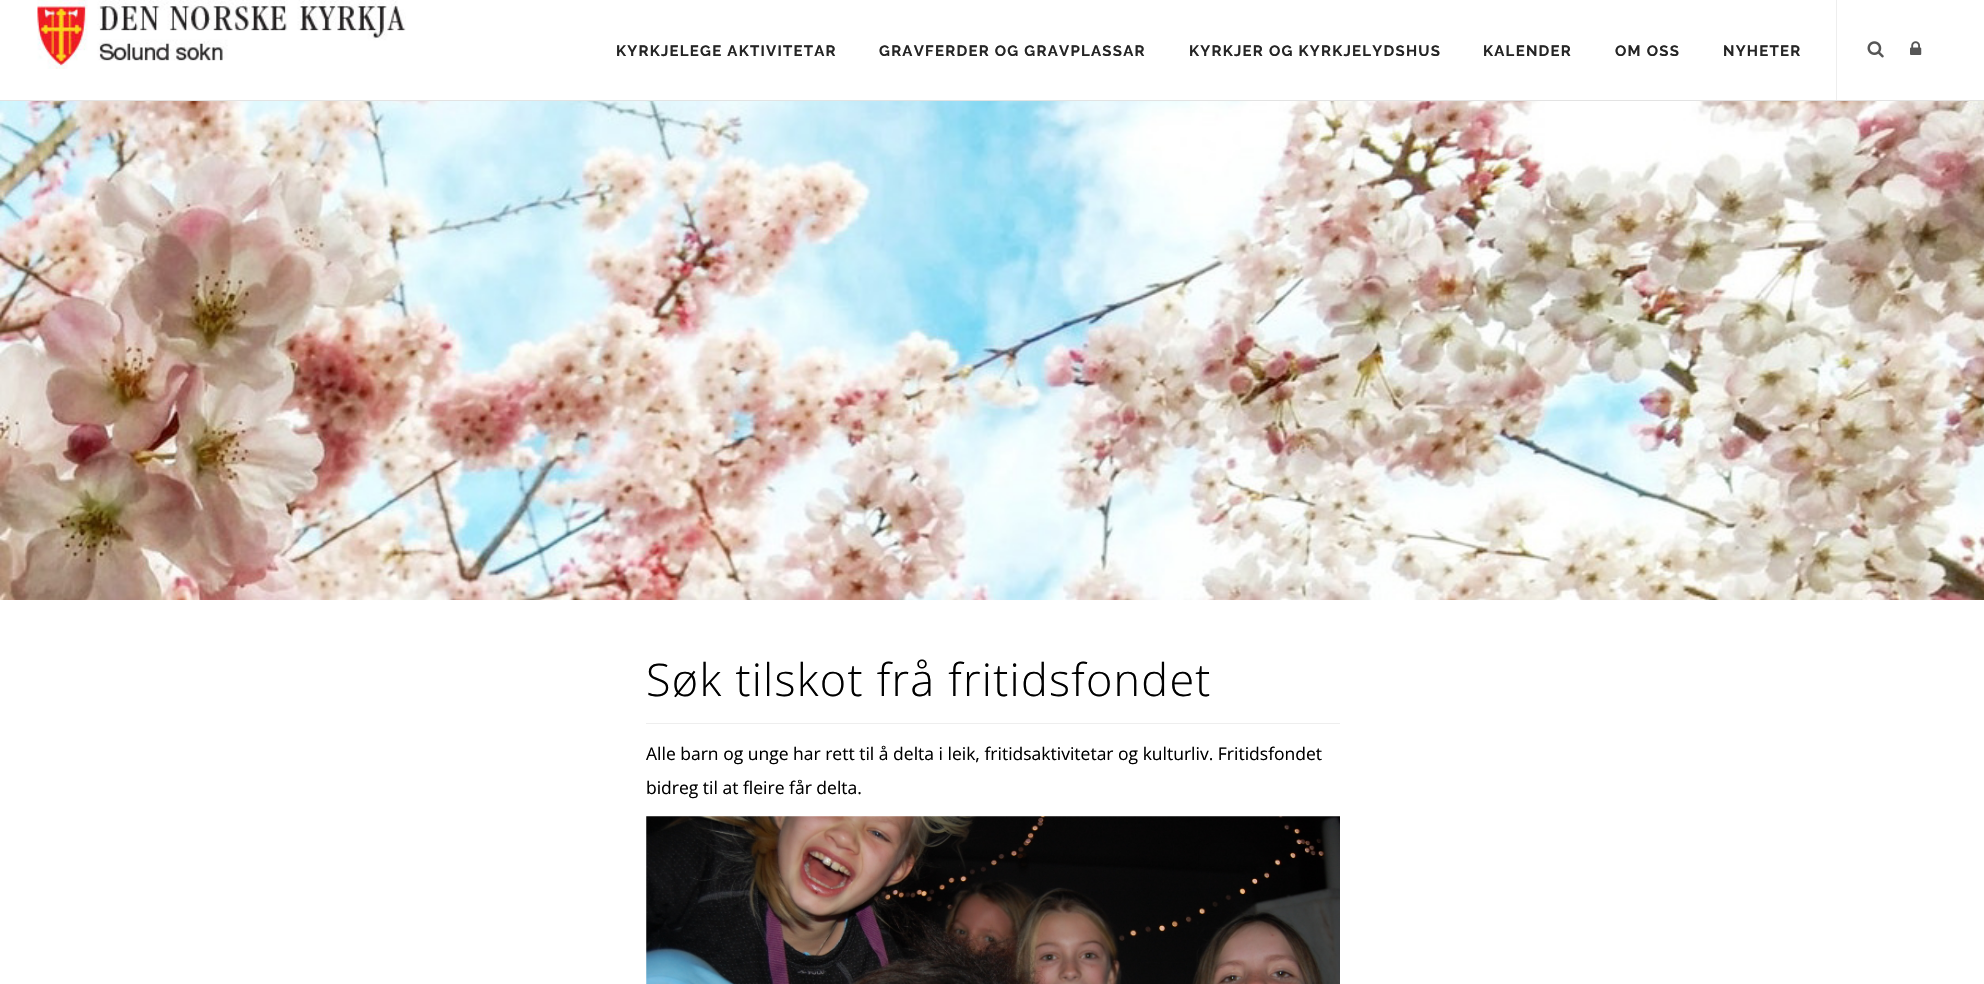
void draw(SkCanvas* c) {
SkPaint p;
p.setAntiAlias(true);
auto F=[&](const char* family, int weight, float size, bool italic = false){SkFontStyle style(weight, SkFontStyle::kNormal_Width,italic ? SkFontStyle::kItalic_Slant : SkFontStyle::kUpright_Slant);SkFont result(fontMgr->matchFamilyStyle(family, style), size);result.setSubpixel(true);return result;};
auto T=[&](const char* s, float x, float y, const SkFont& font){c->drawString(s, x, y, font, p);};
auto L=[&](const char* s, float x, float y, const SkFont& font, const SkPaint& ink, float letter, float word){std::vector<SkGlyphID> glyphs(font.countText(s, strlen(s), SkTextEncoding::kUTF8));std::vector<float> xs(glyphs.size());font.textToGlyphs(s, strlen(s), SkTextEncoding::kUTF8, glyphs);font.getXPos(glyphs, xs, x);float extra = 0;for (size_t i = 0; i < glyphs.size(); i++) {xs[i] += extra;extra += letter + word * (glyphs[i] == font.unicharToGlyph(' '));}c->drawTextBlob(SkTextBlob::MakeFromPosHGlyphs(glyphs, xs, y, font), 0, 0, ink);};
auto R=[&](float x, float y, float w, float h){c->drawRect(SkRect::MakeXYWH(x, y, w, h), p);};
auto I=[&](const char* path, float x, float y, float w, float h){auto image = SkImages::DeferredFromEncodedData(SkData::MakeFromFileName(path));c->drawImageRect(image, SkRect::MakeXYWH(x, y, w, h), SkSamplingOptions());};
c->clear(0xffffffff);
p.setColor(0xffe3e3e3);
R(0,100,1984,1);
I("1.png",37,0,369,69);
auto f1 = F("Raleway",700,15);
p.setColor(0xff252525);
L("KYRKJELEGE AKTIVITETAR",616,56,f1,p,1.25,0);
L("GRAVFERDER OG GRAVPLASSAR",879,56,f1,p,1.25,0);
L("KYRKJER OG KYRKJELYDSHUS",1189,56,f1,p,1.25,0);
L("KALENDER",1483,56,f1,p,1.25,0);
L("OM OSS",1615,56,f1,p,1.25,0);
L("NYHETER",1723,56,f1,p,1.25,0);
p.setColor(0xffeeeeee);
R(1836,0,1,100);
I("2.png",1867,41,17,17);
I("3.png",1910,41,12,14);
I("4.png",0,101,1984,499);
auto f2 = F("Open Sans",300,45);
p.setColor(0xff000000);
L("Søk tilskot frå fritidsfondet",646,696,f2,p,1.25,0);
p.setColor(0xffeeeeee);
R(646,723,694,1);
auto f3 = F("Open Sans",400,17.5);
p.setColor(0xff000000);
T("Alle barn og unge har rett til å delta i leik, fritidsaktivitetar og kulturliv. Fritidsfondet",646,760,f3);
T("bidreg til at fleire får delta.",646,794,f3);
I("5.png",646,816,694,168);
}
